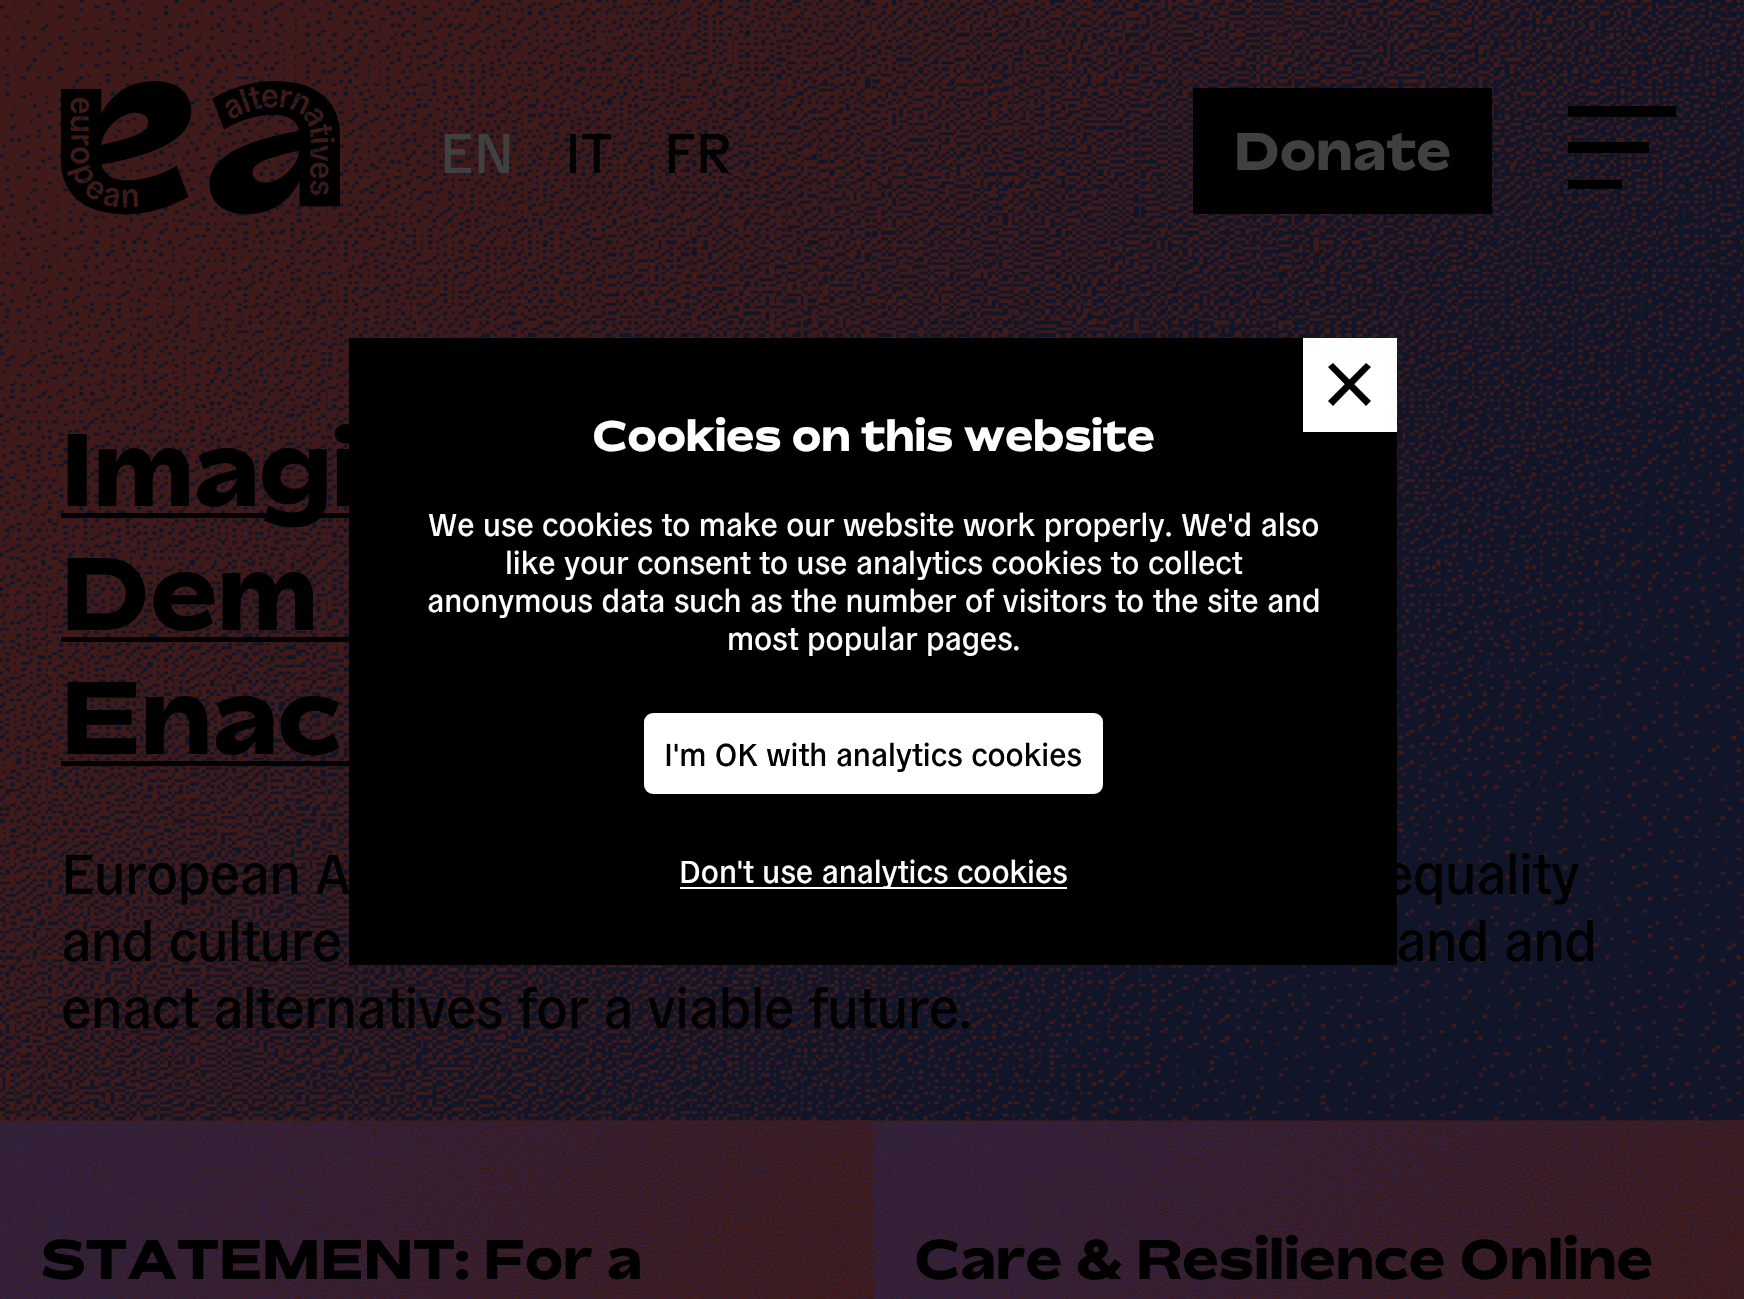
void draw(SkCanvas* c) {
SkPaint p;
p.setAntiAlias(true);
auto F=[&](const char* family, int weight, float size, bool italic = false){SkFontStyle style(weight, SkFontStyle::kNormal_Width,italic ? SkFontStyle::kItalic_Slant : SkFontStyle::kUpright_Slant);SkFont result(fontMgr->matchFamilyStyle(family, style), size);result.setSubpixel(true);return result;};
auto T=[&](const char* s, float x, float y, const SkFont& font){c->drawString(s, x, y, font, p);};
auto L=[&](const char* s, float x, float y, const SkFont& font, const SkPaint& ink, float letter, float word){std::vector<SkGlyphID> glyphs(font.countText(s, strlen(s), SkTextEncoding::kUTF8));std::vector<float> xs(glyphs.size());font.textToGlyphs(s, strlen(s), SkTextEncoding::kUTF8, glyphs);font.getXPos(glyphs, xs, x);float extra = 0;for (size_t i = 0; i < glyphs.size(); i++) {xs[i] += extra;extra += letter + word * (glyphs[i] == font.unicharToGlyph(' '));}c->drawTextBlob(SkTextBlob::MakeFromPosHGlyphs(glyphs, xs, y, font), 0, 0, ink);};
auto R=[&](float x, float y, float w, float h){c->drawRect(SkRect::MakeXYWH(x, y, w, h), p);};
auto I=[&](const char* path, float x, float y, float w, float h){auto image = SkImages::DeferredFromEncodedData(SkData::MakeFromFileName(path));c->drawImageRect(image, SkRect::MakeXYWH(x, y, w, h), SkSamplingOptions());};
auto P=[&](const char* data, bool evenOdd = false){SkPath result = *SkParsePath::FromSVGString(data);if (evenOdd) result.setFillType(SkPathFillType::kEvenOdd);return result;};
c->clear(0xff401a18);
I("2.png",0,0,1744,1121);
I("1.png",61,81,279,134);
auto f1 = F("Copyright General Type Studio",500,55.7);
p.setColor(0xff404040);
T("EN",440,173,f1);
p.setColor(0xff000000);
T("IT",565,173,f1);
T("FR",664,173,f1);
R(1193,88,299,126);
auto f2 = F("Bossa",900,53);
p.setColor(0xff404040);
T("Donate",1234,170,f2);
p.setColor(0xff000000);
R(1568,142,81,11);
R(1568,106,108,11);
R(1568,180,54,9);
R(349,338,1048,627);
auto f3 = F("Bossa",900,42.75);
p.setColor(0xffffffff);
T("Cookies on this website",592,451,f3);
R(1303,338,94,94);
p.setColor(0xff000000);
c->drawPath(P("M1366 363l5 4l-38 39l-5-5z"),p);
c->drawPath(P("M1328 367l5-4l38 38l-5 5z"),p);
auto f4 = F("Copyright General Type Studio",500,31.55);
p.setColor(0xffffffff);
T("We use cookies to make our website work properly. We'd also",428,536,f4);
T("like your consent to use analytics cookies to collect",505,574,f4);
T("anonymous data such as the number of visitors to the site and",427,612,f4);
T("most popular pages.",727,650,f4);
c->drawRoundRect(SkRect::MakeXYWH(645,714,457,79),8,8,p);
p.setStroke(true);
p.setStrokeWidth(2);
c->drawRoundRect(SkRect::MakeXYWH(645,714,457,79),8,8,p);
p.setStroke(false);
p.setColor(0xff000000);
T("I'm OK with analytics cookies",664,766,f4);
p.setColor(0xffffffff);
R(680,887,387,2);
T("Don't use analytics cookies",679,883,f4);
p.setColor(0xff000000);
R(61,513,288,5);
auto f5 = F("Bossa",900,103);
T("Imagi",61,506,f5);
T("Dem",61,630,f5);
R(61,637,288,5);
T("Enac",61,754,f5);
R(61,761,288,5);
L("European A",61,894,f1,p,-.55,0);
L("equality",1383,894,f1,p,-.55,0);
L("and culture",61,961,f1,p,-.55,0);
L("and and",1396,961,f1,p,-.55,0);
L("enact alternatives for a viable future.",61,1028,f1,p,-.55,0);
p.setColor(0xff31213c);
R(0,1121,1744,178);
I("3.png",0,1120,873,179);
auto f6 = F("Bossa",900,55.7);
p.setColor(0xff000000);
T("STATEMENT: For a",41,1279,f6);
I("4.png",873,1120,871,179);
T("Care & Resilience Online",914,1279,f6);
}
